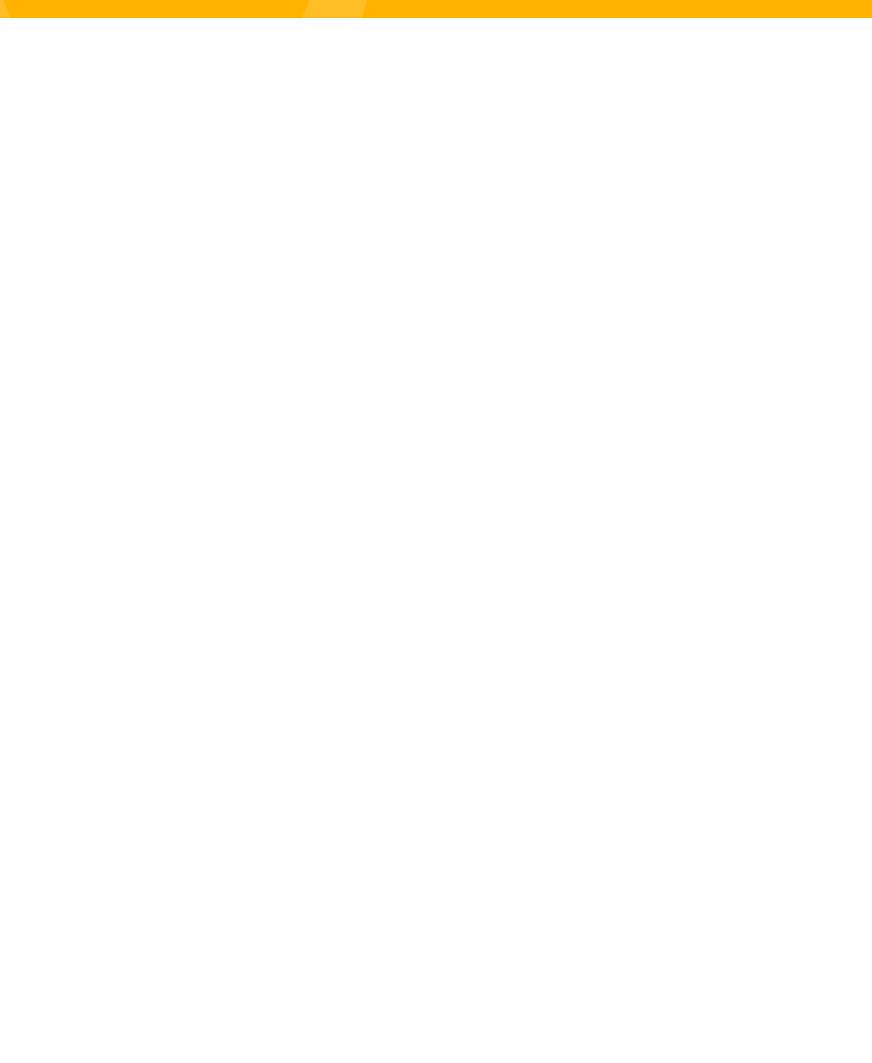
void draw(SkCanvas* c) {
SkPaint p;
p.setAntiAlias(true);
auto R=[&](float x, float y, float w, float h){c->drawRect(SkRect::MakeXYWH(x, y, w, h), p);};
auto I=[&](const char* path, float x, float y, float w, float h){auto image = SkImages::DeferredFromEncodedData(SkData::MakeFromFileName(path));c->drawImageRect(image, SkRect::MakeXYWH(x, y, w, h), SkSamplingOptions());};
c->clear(0xffffffff);
p.setColor(0xffffb300);
R(0,0,872,18);
I("1.png",0,0,367,18);
}
